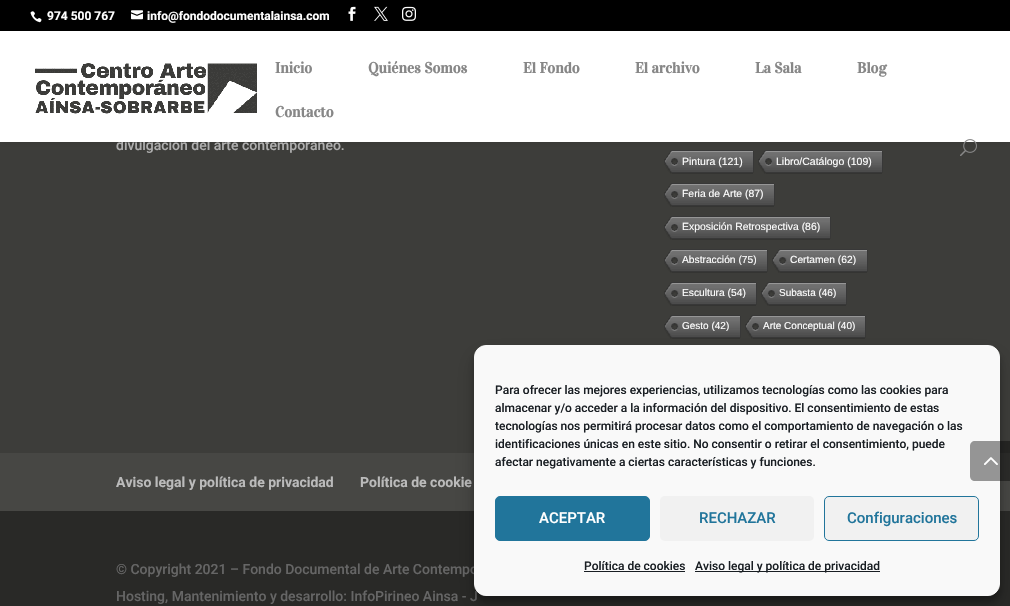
void draw(SkCanvas* c) {
SkPaint p;
p.setAntiAlias(true);
auto F=[&](const char* family, int weight, float size, bool italic = false){SkFontStyle style(weight, SkFontStyle::kNormal_Width,italic ? SkFontStyle::kItalic_Slant : SkFontStyle::kUpright_Slant);SkFont result(fontMgr->matchFamilyStyle(family, style), size);result.setSubpixel(true);return result;};
auto T=[&](const char* s, float x, float y, const SkFont& font){c->drawString(s, x, y, font, p);};
auto R=[&](float x, float y, float w, float h){c->drawRect(SkRect::MakeXYWH(x, y, w, h), p);};
auto Q=[&](float x, float y, float w, float h, float radius){c->drawRoundRect(SkRect::MakeXYWH(x, y, w, h), radius, radius, p);};
auto I=[&](const char* path, float x, float y, float w, float h){auto image = SkImages::DeferredFromEncodedData(SkData::MakeFromFileName(path));c->drawImageRect(image, SkRect::MakeXYWH(x, y, w, h), SkSamplingOptions());};
auto P=[&](const char* data, bool evenOdd = false){SkPath result = *SkParsePath::FromSVGString(data);if (evenOdd) result.setFillType(SkPathFillType::kEvenOdd);return result;};
c->clear(0xff3d3d3a);
I("8.png",664,150,89,24);
I("9.png",753,151,1,22);
I("10.png",758,150,124,24);
I("9.png",882,151,1,22);
p.setColor(0x1a000000);
p.setMaskFilter(SkMaskFilter::MakeBlur(kNormal_SkBlurStyle, 3.5));
c->drawRect(SkRect::MakeXYWH(0,31,1010,111),p);
p.setMaskFilter(nullptr);
p.setColor(0xff000000);
R(0,0,1010,31);
I("1.png",30,11,12,12);
auto f1 = F("Roboto",700,12);
p.setColor(0xffffffff);
T("974 500 767",47,20,f1);
I("2.png",131,10,12,10);
T("info@fondodocumentalainsa.com",147,20,f1);
I("3.png",348,6,8,15);
I("4.png",374,6,14,15);
I("5.png",402,6,14,15);
auto f2 = F("Roboto",500,14);
p.setColor(0xffafafaf);
T("divulgación del arte contemporáneo.",116,150,f2);
p.setColor(0xffffffff);
R(0,31,1010,111);
I("6.png",35,63,222,51);
auto f3 = F("Vidaloka",700,15);
p.setColor(0xff878787);
T("Inicio",275,73,f3);
T("Quiénes Somos",368,73,f3);
T("El Fondo",523,73,f3);
T("El archivo",635,73,f3);
T("La Sala",755,73,f3);
T("Blog",857,73,f3);
T("Contacto",275,117,f3);
I("7.png",960,139,17,17);
auto f4 = F("Liberation Sans",400,10.5);
p.setColor(0xffffffff);
T("Pintura (121)",682,165,f4);
T("Libro/Catálogo (109)",776,165,f4);
I("11.png",664,183,110,24);
auto f5 = F("Liberation Sans",400,10.4);
T("Feria de Arte (87)",682,197,f5);
I("9.png",774,184,1,22);
I("12.png",664,216,166,24);
T("Exposición Retrospectiva (86)",682,230,f5);
I("9.png",830,217,1,22);
I("13.png",664,249,103,24);
auto f6 = F("Liberation Sans",400,10.25);
T("Abstracción (75)",682,263,f6);
I("9.png",767,250,1,22);
I("14.png",772,249,95,24);
T("Certamen (62)",790,263,f6);
I("9.png",867,250,1,22);
I("15.png",664,282,92,24);
T("Escultura (54)",682,296,f6);
I("9.png",756,283,1,22);
I("16.png",761,282,85,24);
auto f7 = F("Liberation Sans",400,10);
T("Subasta (46)",779,296,f7);
I("9.png",846,283,1,22);
I("17.png",664,315,76,24);
T("Gesto (42)",682,329,f7);
I("9.png",740,316,1,22);
I("18.png",745,315,120,24);
T("Arte Conceptual (40)",763,329,f7);
I("9.png",865,316,1,22);
p.setColor(0xff474744);
R(0,453,1010,58);
auto f8 = F("Roboto",700,14);
p.setColor(0xffbbbbbb);
T("Aviso legal y política de privacidad",116,487,f8);
T("Política de cookie",360,487,f8);
p.setColor(0xff292927);
R(0,511,1010,95);
p.setColor(0xff666666);
T("© Copyright 2021 – Fondo Documental de Arte Contempo",116,574,f2);
T("Hosting, Mantenimiento y desarrollo: InfoPirineo Ainsa - J",116,601,f2);
p.setColor(0x3b000000);
p.setMaskFilter(SkMaskFilter::MakeBlur(kNormal_SkBlurStyle, 3));
c->drawRoundRect(SkRect::MakeXYWH(474,351,526,251),12,12,p);
p.setMaskFilter(nullptr);
p.setColor(0x30000000);
p.setMaskFilter(SkMaskFilter::MakeBlur(kNormal_SkBlurStyle, 10));
c->drawRoundRect(SkRect::MakeXYWH(474,355,526,251),12,12,p);
p.setMaskFilter(nullptr);
p.setColor(0xfff9f9f9);
c->drawRoundRect(SkRect::MakeXYWH(474.5,345.5,525,250),11.5,11.5,p);
p.setStroke(true);
p.setStrokeWidth(1);
c->drawRoundRect(SkRect::MakeXYWH(474.5,345.5,525,250),11.5,11.5,p);
p.setStroke(false);
p.setColor(0x66000000);
c->drawPath(P("M975 441h35v40h-35c-3 0-5-2-5-5v-30c0-3 2-5 5-5z"),p);
I("19.png",984,457,14,8);
auto f9 = F("Roboto",500,12);
p.setColor(0xff191e23);
T("Para ofrecer las mejores experiencias, utilizamos tecnologías como las cookies para",495,394,f9);
T("almacenar y/o acceder a la información del dispositivo. El consentimiento de estas",495,412,f9);
T("tecnologías nos permitirá procesar datos como el comportamiento de navegación o las",495,430,f9);
T("identificaciones únicas en este sitio. No consentir o retirar el consentimiento, puede",495,448,f9);
T("afectar negativamente a ciertas características y funciones.",495,466,f9);
p.setColor(0xff21759b);
c->drawRoundRect(SkRect::MakeXYWH(495.5,496.5,154,44),4.5,4.5,p);
p.setStroke(true);
c->drawRoundRect(SkRect::MakeXYWH(495.5,496.5,154,44),4.5,4.5,p);
auto f10 = F("Roboto",500,15);
p.setStroke(false);
p.setColor(0xffffffff);
T("ACEPTAR",539,523,f10);
p.setColor(0xfff1f1f1);
Q(660,496,154,45,5);
p.setColor(0xff21759b);
T("RECHAZAR",699,523,f10);
p.setColor(0xfff1f1f1);
c->drawRoundRect(SkRect::MakeXYWH(824.5,496.5,154,44),4.5,4.5,p);
p.setStroke(true);
p.setColor(0xff21759b);
c->drawRoundRect(SkRect::MakeXYWH(824.5,496.5,154,44),4.5,4.5,p);
p.setStroke(false);
T("Configuraciones",847,523,f10);
p.setColor(0xff191e23);
T("Política de cookies",584,570,f9);
R(584,571,101,1);
R(695,571,185,1);
T("Aviso legal y política de privacidad",695,570,f9);
}
